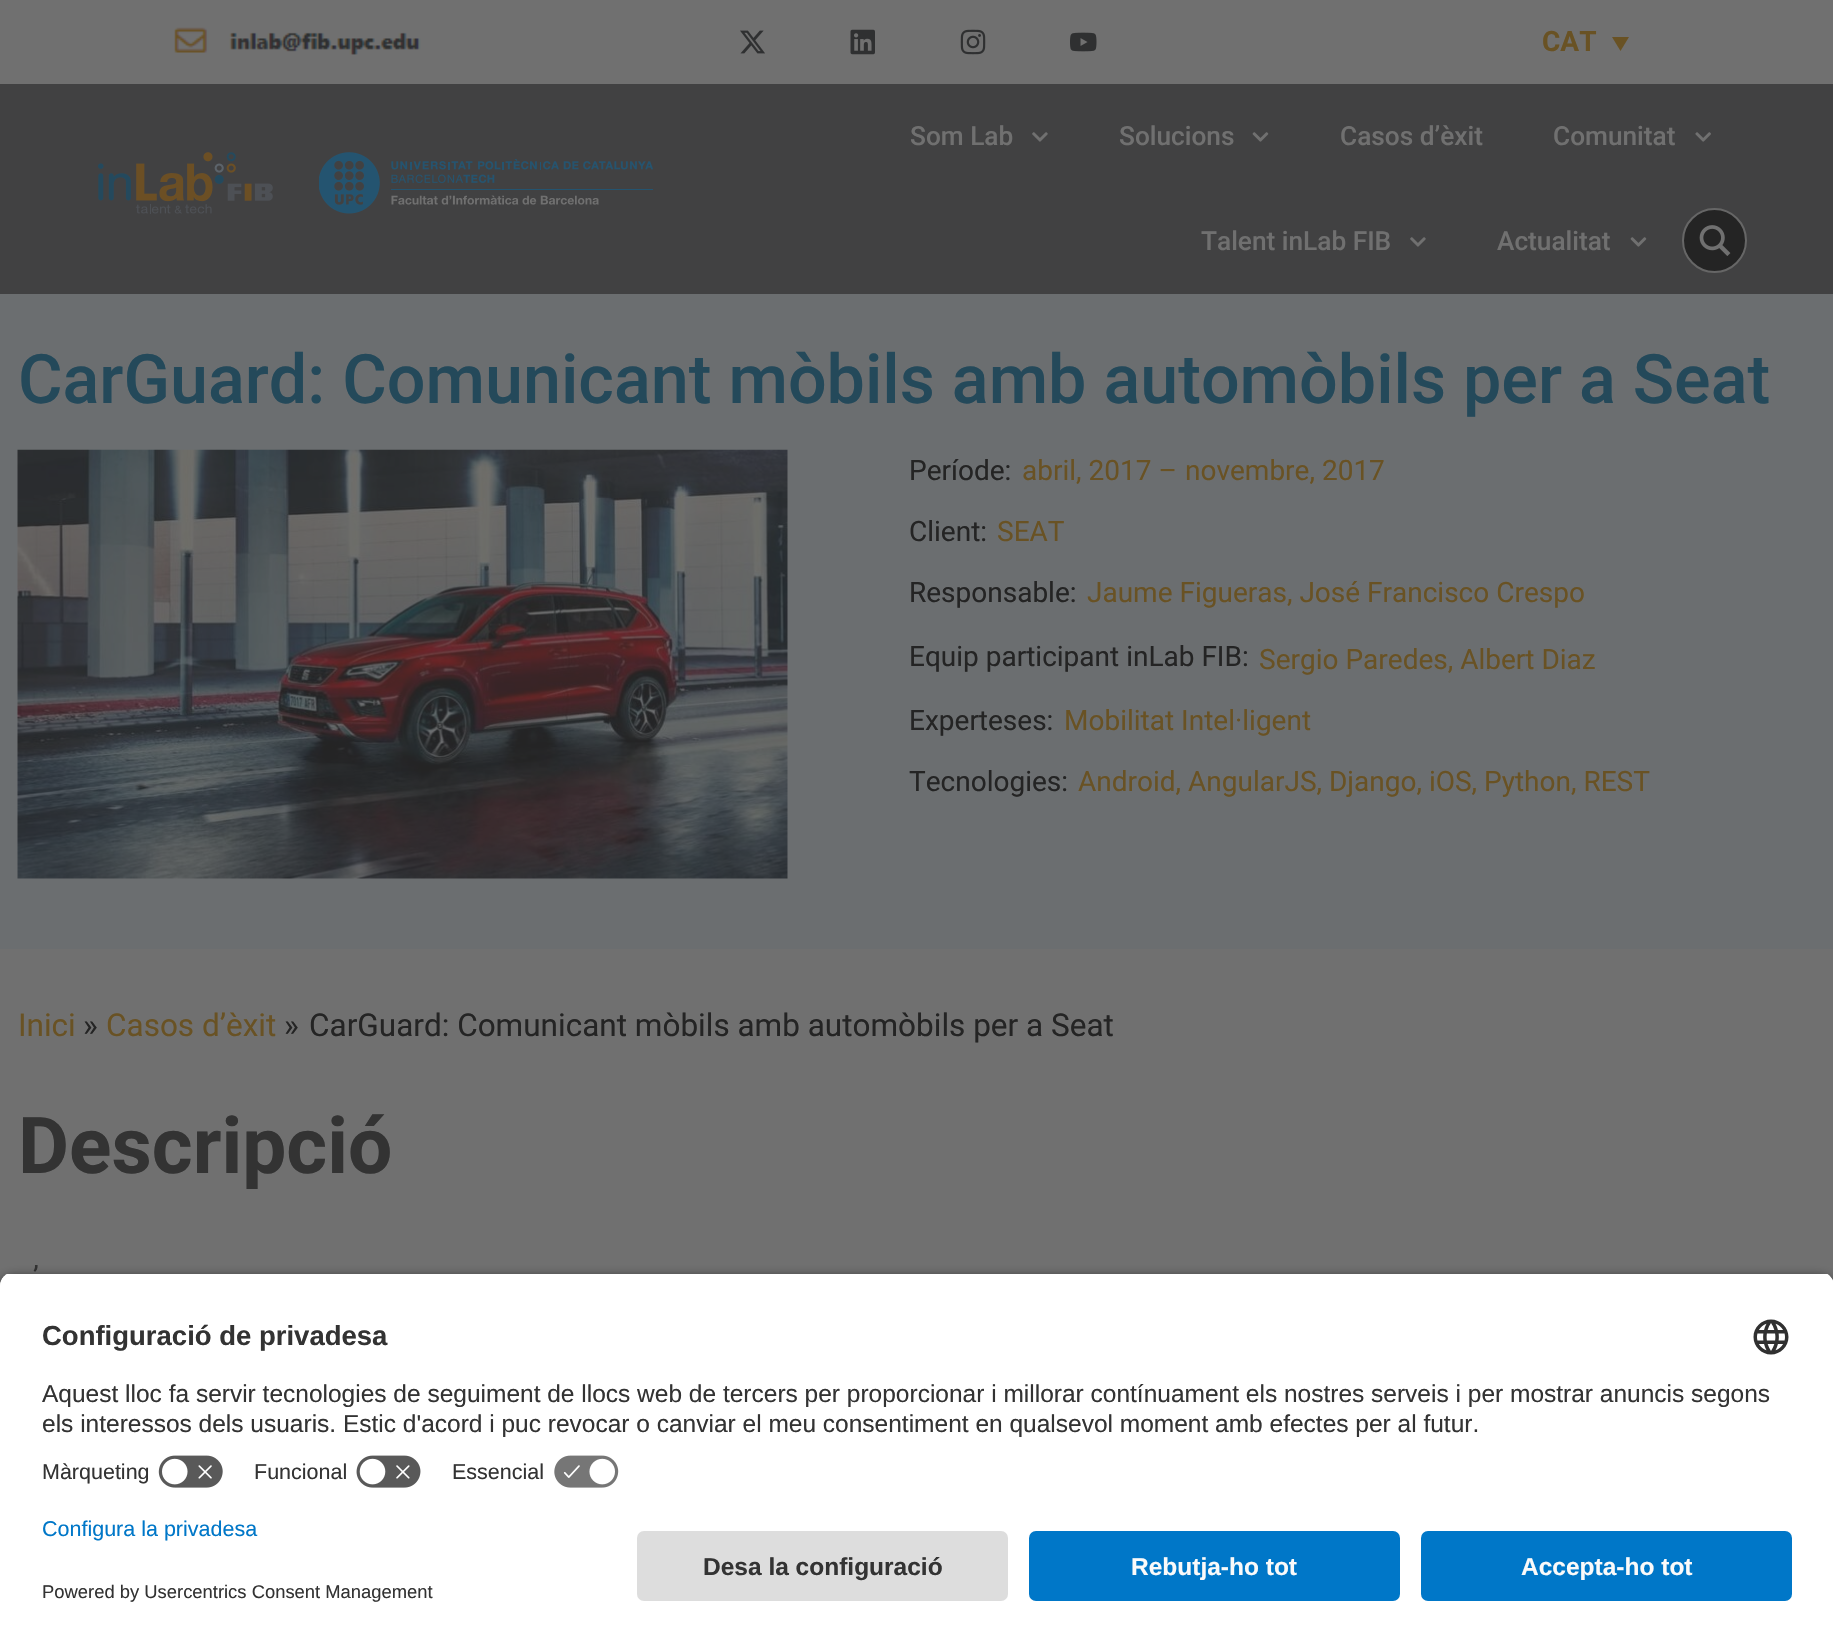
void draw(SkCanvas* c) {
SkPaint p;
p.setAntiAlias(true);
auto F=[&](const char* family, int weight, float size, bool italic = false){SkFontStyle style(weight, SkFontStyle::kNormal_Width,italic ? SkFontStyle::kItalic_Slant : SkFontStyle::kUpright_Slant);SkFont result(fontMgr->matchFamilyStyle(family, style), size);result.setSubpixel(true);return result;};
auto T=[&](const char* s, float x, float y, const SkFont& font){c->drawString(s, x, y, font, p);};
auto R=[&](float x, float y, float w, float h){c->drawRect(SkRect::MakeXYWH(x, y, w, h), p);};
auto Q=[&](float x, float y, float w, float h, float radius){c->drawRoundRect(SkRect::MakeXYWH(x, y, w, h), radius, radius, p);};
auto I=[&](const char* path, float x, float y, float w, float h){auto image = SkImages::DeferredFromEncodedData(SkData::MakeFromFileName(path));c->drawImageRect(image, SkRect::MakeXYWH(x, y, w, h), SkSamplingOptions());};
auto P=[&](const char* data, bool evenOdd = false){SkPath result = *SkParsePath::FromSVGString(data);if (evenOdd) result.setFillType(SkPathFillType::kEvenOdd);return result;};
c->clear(0xff707070);
I("1.png",174,27,247,28);
I("2.png",740,30,25,24);
I("3.png",850,29,25,26);
I("4.png",960,29,26,26);
I("5.png",1070,32,27,20);
auto f1 = F("Roboto",700,28);
p.setColor(0xff695224);
T("CAT",1542,51,f1);
c->drawPath(P("M1612 37h17l-8.5 14z"),p);
p.setColor(0xff414142);
R(0,84,1833,210);
I("6.png",98,152,175,62);
I("7.png",319,152,334,62);
auto f2 = F("Roboto",500,26.25);
p.setColor(0xff707070);
T("Som Lab",910,145,f2);
I("8.png",1032,132,16,10);
T("Solucions",1119,145,f2);
I("9.png",1252,132,17,10);
T("Casos d’èxit",1340,145,f2);
T("Comunitat",1553,145,f2);
I("10.png",1695,132,16,10);
T("Talent inLab FIB",1201,250,f2);
I("8.png",1410,237,16,10);
T("Actualitat",1497,250,f2);
I("9.png",1630,237,17,10);
p.setColor(0xff242424);
c->drawCircle(1714.5,240.5,31.5,p);
p.setStroke(true);
p.setStrokeWidth(2);
p.setColor(0xff666666);
c->drawCircle(1714.5,240.5,31.5,p);
I("11.png",1699,225,32,31);
p.setStroke(false);
p.setColor(0xff6b6e70);
R(0,294,1833,655);
auto f3 = F("Roboto",500,68.25);
p.setColor(0xff24495a);
T("CarGuard: Comunicant mòbils amb automòbils per a Seat",18,403,f3);
I("12.png",17,449,771,430);
auto f4 = F("Roboto",400,28);
p.setColor(0xff242424);
T("Període:",909,480,f4);
p.setColor(0xff695224);
T("abril, 2017 –",1022,480,f4);
T("novembre, 2017",1185,480,f4);
p.setColor(0xff242424);
T("Client:",909,541,f4);
p.setColor(0xff695224);
T("SEAT",997,541,f4);
p.setColor(0xff242424);
T("Responsable:",909,602,f4);
p.setColor(0xff695224);
T("Jaume Figueras, José Francisco Crespo",1087,602,f4);
p.setColor(0xff242424);
T("Equip participant inLab FIB:",909,666,f4);
p.setColor(0xff695224);
T("Sergio Paredes, Albert Diaz",1259,669,f4);
p.setColor(0xff242424);
T("Experteses:",909,730,f4);
p.setColor(0xff695224);
T("Mobilitat Intel·ligent",1064,730,f4);
p.setColor(0xff242424);
T("Tecnologies:",909,791,f4);
p.setColor(0xff695224);
T("Android, AngularJS, Django, iOS, Python, REST",1078,791,f4);
auto f5 = F("Roboto",400,31.5);
T("Inici",18,1036,f5);
p.setColor(0xff242424);
T("»",83,1036,f5);
p.setColor(0xff695224);
T("Casos d’èxit",106,1036,f5);
p.setColor(0xff242424);
T("»",284,1036,f5);
T("CarGuard: Comunicant mòbils amb automòbils per a Seat",309,1036,f5);
auto f6 = F("Roboto",700,78.5);
p.setColor(0xff333333);
T("Descripció",18,1173,f6);
T("’",33,1286,f4);
p.setColor(0xcc000000);
p.setMaskFilter(SkMaskFilter::MakeBlur(kNormal_SkBlurStyle, 6));
c->drawRoundRect(SkRect::MakeXYWH(0,1278,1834,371),14,14,p);
p.setMaskFilter(nullptr);
c->save();
c->clipPath(P("M14 1272h1806c7.5 0 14 6.5 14 14v231h-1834v-231c0-7.5 6.5-14 14-14z"),true);
p.setColor(0xffffffff);
R(0,1274,1833,243);
R(0,1274,1833,173);
c->restore();
auto f7 = F("Liberation Sans",700,27.5);
p.setColor(0xff333333);
T("Configuració de privadesa",42,1345,f7);
I("13.png",1753,1319,36,36);
auto f8 = F("Liberation Sans",400,24.5);
T("Aquest lloc fa servir tecnologies de seguiment de llocs web de tercers per proporcionar i millorar contínuament els nostres serveis i per mostrar anuncis segons",42,1402,f8);
T("els interessos dels usuaris. Estic d'acord i puc revocar o canviar el meu consentiment en qualsevol moment amb efectes per al futur.",42,1432,f8);
auto f9 = F("Liberation Sans",400,21.5);
T("Màrqueting",42,1479,f9);
I("14.png",158,1455,65,33);
T("Funcional",254,1479,f9);
I("15.png",356,1455,65,33);
T("Essencial",452,1479,f9);
I("16.png",554,1455,65,33);
p.setColor(0xffffffff);
R(0,1517,1833,125);
p.setColor(0xff0077c8);
T("Configura la privadesa",42,1536,f9);
auto f10 = F("Liberation Sans",400,18.4);
p.setColor(0xff333333);
T("Powered by Usercentrics Consent Management",42,1598,f10);
p.setColor(0xffdddddd);
Q(637,1531,371,70,7);
auto f11 = F("Liberation Sans",700,24.5);
p.setColor(0xff333333);
T("Desa la configuració",703,1575,f11);
p.setColor(0xff0077c8);
Q(1029,1531,371,70,7);
p.setColor(0xfffafafa);
T("Rebutja-ho tot",1131,1575,f11);
p.setColor(0xff0077c8);
Q(1421,1531,371,70,7);
p.setColor(0xfffafafa);
T("Accepta-ho tot",1521,1575,f11);
}
